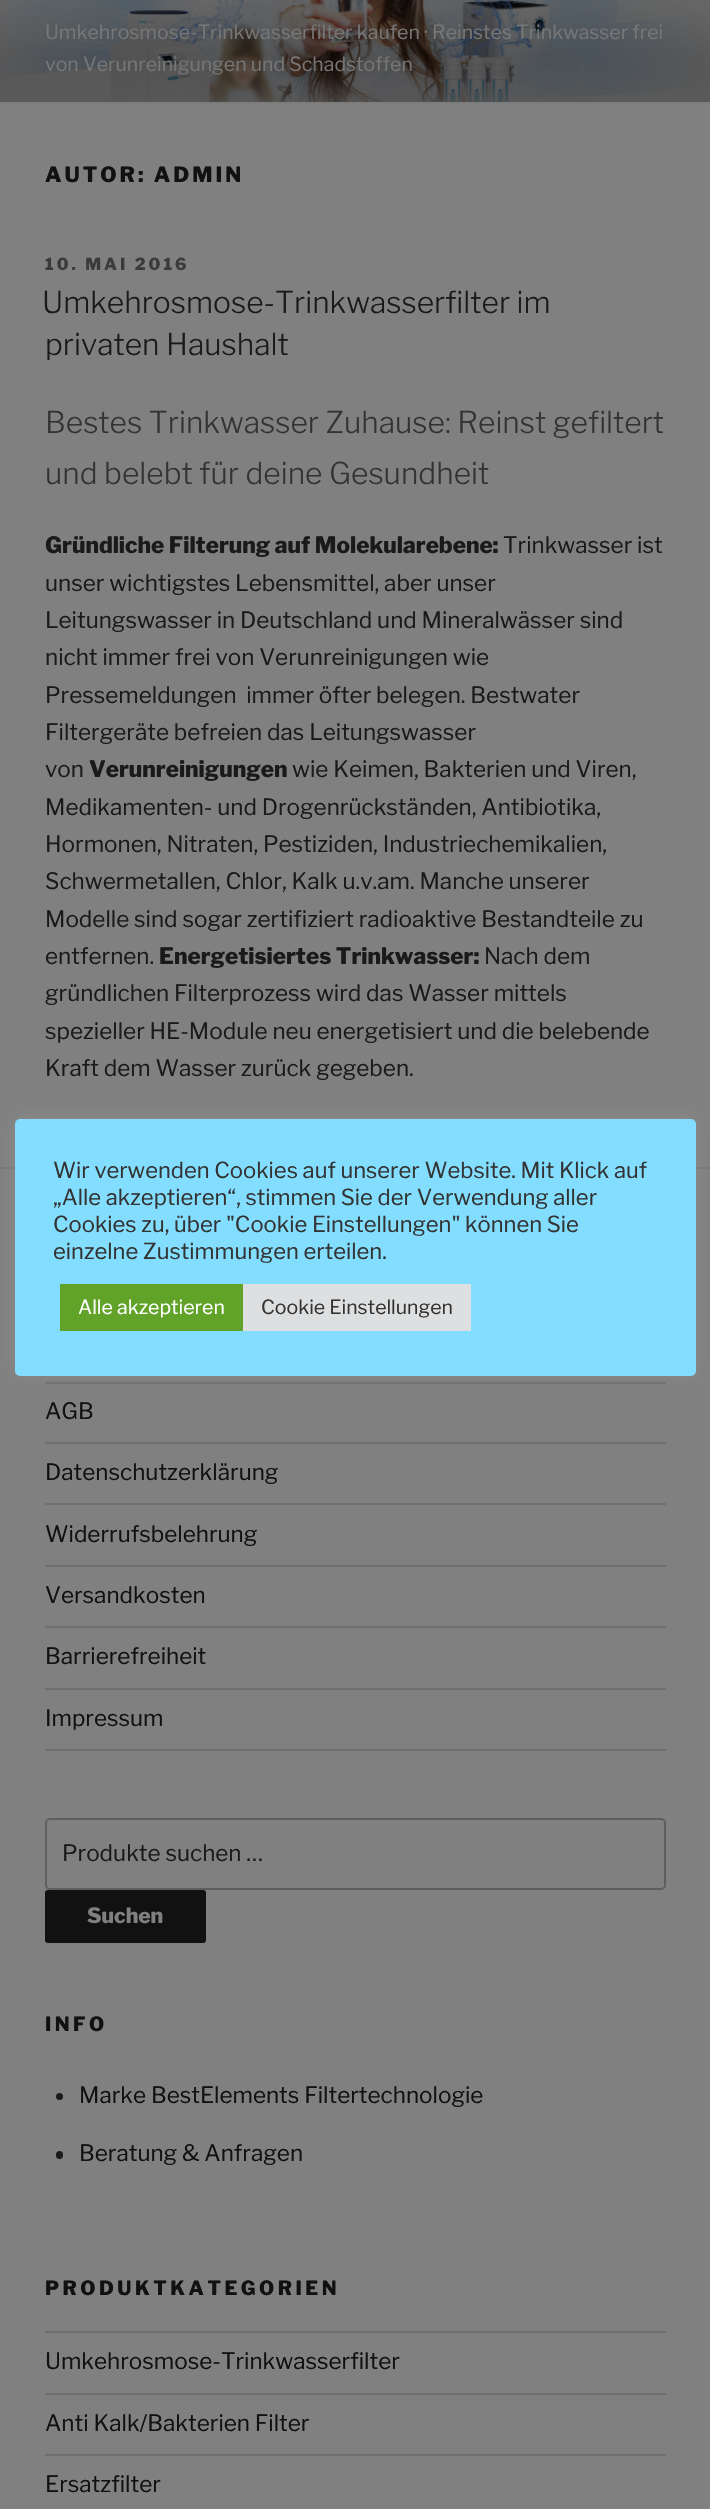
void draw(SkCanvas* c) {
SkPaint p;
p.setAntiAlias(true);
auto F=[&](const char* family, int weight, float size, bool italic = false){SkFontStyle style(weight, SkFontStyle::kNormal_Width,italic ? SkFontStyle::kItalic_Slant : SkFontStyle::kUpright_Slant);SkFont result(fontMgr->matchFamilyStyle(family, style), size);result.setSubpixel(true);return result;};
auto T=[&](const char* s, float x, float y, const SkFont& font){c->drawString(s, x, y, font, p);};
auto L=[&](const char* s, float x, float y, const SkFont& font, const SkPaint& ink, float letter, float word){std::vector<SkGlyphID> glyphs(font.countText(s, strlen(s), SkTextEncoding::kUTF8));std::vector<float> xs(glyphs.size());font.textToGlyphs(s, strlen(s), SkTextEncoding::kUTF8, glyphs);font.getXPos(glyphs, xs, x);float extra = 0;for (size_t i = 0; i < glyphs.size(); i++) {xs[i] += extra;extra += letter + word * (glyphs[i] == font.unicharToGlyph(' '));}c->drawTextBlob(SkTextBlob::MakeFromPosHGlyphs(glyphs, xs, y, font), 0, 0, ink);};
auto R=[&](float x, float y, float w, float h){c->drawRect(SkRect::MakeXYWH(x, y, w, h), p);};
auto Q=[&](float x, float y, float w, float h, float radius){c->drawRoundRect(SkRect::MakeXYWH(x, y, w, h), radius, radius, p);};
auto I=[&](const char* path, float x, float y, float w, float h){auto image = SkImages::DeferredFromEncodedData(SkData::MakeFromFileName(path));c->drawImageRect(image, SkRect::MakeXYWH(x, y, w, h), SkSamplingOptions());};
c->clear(0xff808080);
p.setColor(0xff7d7d7d);
R(0,102,710,2);
I("1.png",0,0,710,102);
auto f1 = F("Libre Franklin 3",100,19.5);
p.setColor(0xff767676);
T("Umkehrosmose-Trinkwasserfilter kaufen · Reinstes Trinkwasser frei",45,39,f1);
T("von Verunreinigungen und Schadstoffen",45,71,f1);
auto f2 = F("Libre Franklin",100,21);
p.setColor(0xff111111);
L("AUTOR: ADMIN",45,182,f2,p,3,0);
auto f3 = F("Libre Franklin",100,16.5);
p.setColor(0xff3b3b3b);
L("10. MAI 2016",45,270,f3,p,3,0);
auto f4 = F("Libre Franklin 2",100,30);
p.setColor(0xff1a1a1a);
T("Umkehrosmose-Trinkwasserfilter im",42,313,f4);
T("privaten Haushalt",45,355,f4);
p.setColor(0xff333333);
T("Bestes Trinkwasser Zuhause: Reinst gefiltert",45,433,f4);
T("und belebt für deine Gesundheit",45,484,f4);
auto f5 = F("Libre Franklin",100,22.5);
p.setColor(0xff1a1a1a);
T("Gründliche Filterung auf Molekularebene:",45,553,f5);
auto f6 = F("Libre Franklin 3",100,22.5);
T("Trinkwasser ist",503,553,f6);
T("unser wichtigstes Lebensmittel, aber unser",45,591,f6);
T("Leitungswasser in Deutschland und Mineralwässer sind",45,628,f6);
T("nicht immer frei von Verunreinigungen wie",45,665,f6);
T("Pressemeldungen  immer öfter belegen. Bestwater",45,703,f6);
T("Filtergeräte befreien das Leitungswasser",45,740,f6);
T("von",45,777,f6);
T("Verunreinigungen",89,777,f5);
T("wie Keimen, Bakterien und Viren,",292,777,f6);
T("Medikamenten- und Drogenrückständen, Antibiotika,",45,815,f6);
T("Hormonen, Nitraten, Pestiziden, Industriechemikalien,",45,852,f6);
T("Schwermetallen, Chlor, Kalk u.v.am. Manche unserer",45,889,f6);
T("Modelle sind sogar zertifiziert radioaktive Bestandteile zu",45,927,f6);
T("entfernen.",45,964,f6);
T("Energetisiertes Trinkwasser:",159,964,f5);
T("Nach dem",484,964,f6);
T("gründlichen Filterprozess wird das Wasser mittels",45,1001,f6);
T("spezieller HE-Module neu energetisiert und die belebende",45,1039,f6);
T("Kraft dem Wasser zurück gegeben.",45,1076,f6);
p.setColor(0xff777777);
R(0,1167,710,2);
p.setColor(0xff6f6f6f);
R(45,1382,621,2);
R(45,1442,621,2);
p.setColor(0xff111111);
T("AGB",45,1419,f6);
p.setColor(0xff6f6f6f);
R(45,1503,621,2);
p.setColor(0xff111111);
T("Datenschutzerklärung",45,1480,f6);
p.setColor(0xff6f6f6f);
R(45,1565,621,2);
p.setColor(0xff111111);
T("Widerrufsbelehrung",45,1542,f6);
p.setColor(0xff6f6f6f);
R(45,1626,621,2);
p.setColor(0xff111111);
T("Versandkosten",45,1603,f6);
p.setColor(0xff6f6f6f);
R(45,1688,621,2);
p.setColor(0xff111111);
T("Barrierefreiheit",45,1664,f6);
p.setColor(0xff6f6f6f);
R(45,1749,621,2);
p.setColor(0xff111111);
T("Impressum",45,1726,f6);
p.setStroke(true);
p.setStrokeWidth(2);
p.setColor(0xff5e5e5e);
c->drawRoundRect(SkRect::MakeXYWH(46,1819,619,70),4,4,p);
p.setStroke(false);
p.setColor(0xff1a1a1a);
T("Produkte suchen …",62,1861,f6);
p.setColor(0xff111111);
Q(45,1890,161,53,3);
p.setColor(0xff808080);
T("Suchen",87,1923,f2);
auto f7 = F("Libre Franklin",100,19.5);
p.setColor(0xff111111);
L("INFO",45,2031,f7,p,3.5,0);
p.setColor(0xff1a1a1a);
c->drawCircle(59.5,2096.5,3.5,p);
p.setColor(0xff111111);
T("Marke BestElements Filtertechnologie",79,2103,f6);
p.setColor(0xff1a1a1a);
Q(56,2151,7,8,3.5);
p.setColor(0xff111111);
T("Beratung & Anfragen",79,2161,f6);
L("PRODUKTKATEGORIEN",45,2295,f7,p,3.5,0);
p.setColor(0xff6f6f6f);
R(45,2331,621,2);
R(45,2393,621,2);
p.setColor(0xff111111);
T("Umkehrosmose-Trinkwasserfilter",45,2369,f6);
p.setColor(0xff6f6f6f);
R(45,2454,621,2);
p.setColor(0xff111111);
T("Anti Kalk/Bakterien Filter",45,2431,f6);
T("Ersatzfilter",45,2492,f6);
p.setColor(0x4dacabab);
p.setMaskFilter(SkMaskFilter::MakeBlur(kNormal_SkBlurStyle, 7.5));
c->drawRoundRect(SkRect::MakeXYWH(15,1118,681,256),5,5,p);
p.setMaskFilter(nullptr);
p.setColor(0xff82ddff);
Q(15,1119,681,257,5);
auto f8 = F("Libre Franklin 3",100,22);
p.setColor(0xff333333);
T("Wir verwenden Cookies auf unserer Website. Mit Klick auf",53,1178,f8);
T("„Alle akzeptieren“, stimmen Sie der Verwendung aller",53,1205,f8);
T("Cookies zu, über \"Cookie Einstellungen\" können Sie",53,1232,f8);
T("einzelne Zustimmungen erteilen.",53,1259,f8);
p.setColor(0xff61a229);
R(60,1284,183,47);
p.setColor(0xffffffff);
T("Alle akzeptieren",78,1314,f1);
p.setColor(0xffdedfe0);
R(243,1284,228,47);
p.setColor(0xff333333);
T("Cookie Einstellungen",261,1314,f1);
}
